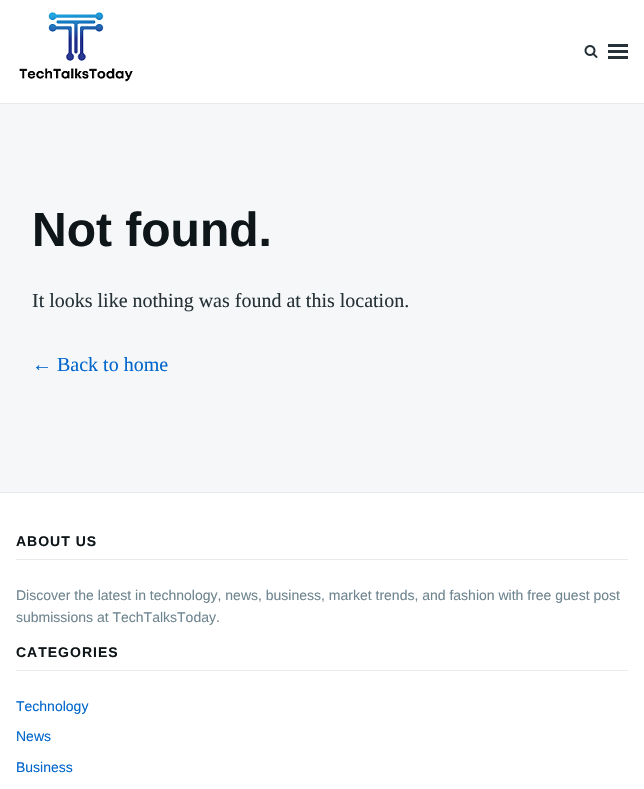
void draw(SkCanvas* c) {
SkPaint p;
p.setAntiAlias(true);
auto F=[&](const char* family, int weight, float size, bool italic = false){SkFontStyle style(weight, SkFontStyle::kNormal_Width,italic ? SkFontStyle::kItalic_Slant : SkFontStyle::kUpright_Slant);SkFont result(fontMgr->matchFamilyStyle(family, style), size);result.setSubpixel(true);return result;};
auto T=[&](const char* s, float x, float y, const SkFont& font){c->drawString(s, x, y, font, p);};
auto L=[&](const char* s, float x, float y, const SkFont& font, const SkPaint& ink, float letter, float word){std::vector<SkGlyphID> glyphs(font.countText(s, strlen(s), SkTextEncoding::kUTF8));std::vector<float> xs(glyphs.size());font.textToGlyphs(s, strlen(s), SkTextEncoding::kUTF8, glyphs);font.getXPos(glyphs, xs, x);float extra = 0;for (size_t i = 0; i < glyphs.size(); i++) {xs[i] += extra;extra += letter + word * (glyphs[i] == font.unicharToGlyph(' '));}c->drawTextBlob(SkTextBlob::MakeFromPosHGlyphs(glyphs, xs, y, font), 0, 0, ink);};
auto R=[&](float x, float y, float w, float h){c->drawRect(SkRect::MakeXYWH(x, y, w, h), p);};
auto I=[&](const char* path, float x, float y, float w, float h){auto image = SkImages::DeferredFromEncodedData(SkData::MakeFromFileName(path));c->drawImageRect(image, SkRect::MakeXYWH(x, y, w, h), SkSamplingOptions());};
c->clear(0xfff5f7f8);
p.setColor(0xffffffff);
R(0,0,644,103);
p.setColor(0xffe9ebeb);
R(0,103,644,1);
I("1.png",19,12,114,70);
I("2.png",584,45,14,13);
p.setColor(0xff263238);
R(608,44,20,3);
R(608,50,20,3);
R(608,56,20,3);
auto f1 = F("Liberation Sans",700,48);
p.setColor(0xff0f161a);
T("Not found.",32,246,f1);
auto f2 = F("Liberation Serif",400,20);
p.setColor(0xff263238);
T("It looks like nothing was found at this location.",32,307,f2);
p.setColor(0xff0066cc);
T("← Back to home",32,371,f2);
p.setColor(0xffffffff);
R(0,493,644,296);
p.setColor(0xffe9ebeb);
R(0,492,644,1);
R(16,559,612,1);
auto f3 = F("Liberation Sans",700,14);
p.setColor(0xff0f161a);
L("ABOUT US",16,546,f3,p,1,0);
auto f4 = F("Liberation Sans",400,14);
p.setColor(0xff6f8590);
T("Discover the latest in technology, news, business, market trends, and fashion with free guest post",16,600,f4);
T("submissions at TechTalksToday.",16,622,f4);
p.setColor(0xffe9ebeb);
R(16,670,612,1);
p.setColor(0xff0f161a);
L("CATEGORIES",16,657,f3,p,1,0);
p.setColor(0xff0066cc);
T("Technology",16,711,f4);
T("News",16,741,f4);
T("Business",16,772,f4);
}
